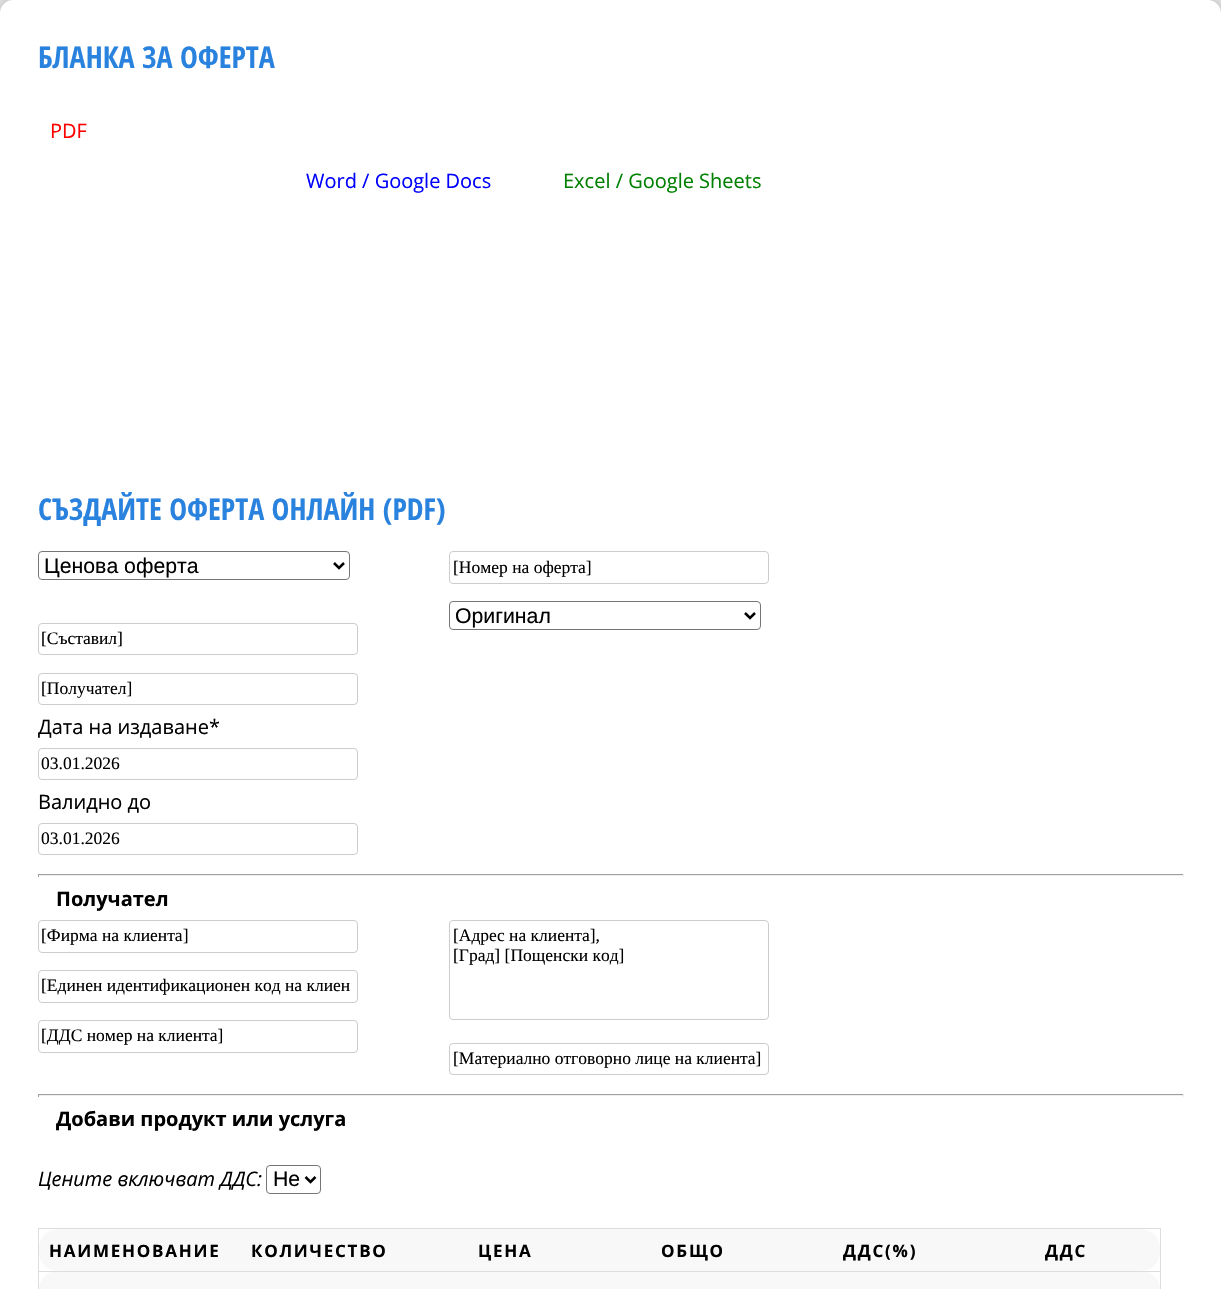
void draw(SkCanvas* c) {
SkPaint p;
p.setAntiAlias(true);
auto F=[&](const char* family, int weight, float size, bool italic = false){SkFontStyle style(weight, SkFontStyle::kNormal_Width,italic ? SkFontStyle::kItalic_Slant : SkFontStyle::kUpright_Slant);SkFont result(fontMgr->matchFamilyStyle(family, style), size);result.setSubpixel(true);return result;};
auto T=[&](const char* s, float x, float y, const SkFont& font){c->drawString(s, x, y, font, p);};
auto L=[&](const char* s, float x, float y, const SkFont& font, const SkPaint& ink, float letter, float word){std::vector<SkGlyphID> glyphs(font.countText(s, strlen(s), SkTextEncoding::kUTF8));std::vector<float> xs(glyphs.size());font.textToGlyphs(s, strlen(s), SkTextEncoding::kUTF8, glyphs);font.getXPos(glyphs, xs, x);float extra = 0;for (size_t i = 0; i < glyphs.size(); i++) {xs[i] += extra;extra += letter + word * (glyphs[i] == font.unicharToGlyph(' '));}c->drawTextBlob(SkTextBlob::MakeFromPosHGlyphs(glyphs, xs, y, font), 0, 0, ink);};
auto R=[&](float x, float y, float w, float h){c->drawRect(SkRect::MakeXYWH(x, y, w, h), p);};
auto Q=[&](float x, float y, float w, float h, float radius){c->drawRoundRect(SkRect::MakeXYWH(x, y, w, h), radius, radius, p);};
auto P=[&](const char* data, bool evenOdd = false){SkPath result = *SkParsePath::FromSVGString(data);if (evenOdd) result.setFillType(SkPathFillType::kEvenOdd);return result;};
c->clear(0xffffffff);
c->save();
c->clipPath(P("M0 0h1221v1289h-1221zm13 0h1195c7 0 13 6 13 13v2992c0 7-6 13-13 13h-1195c-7 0-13-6-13-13v-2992c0-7 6-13 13-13z",true),true);
p.setColor(0xad323232);
p.setMaskFilter(SkMaskFilter::MakeBlur(kNormal_SkBlurStyle, 15.5));
c->drawRoundRect(SkRect::MakeXYWH(0,0,1221,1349),13,13,p);
p.setMaskFilter(nullptr);
c->restore();
auto f1 = F("Open Sans Condensed",700,30);
p.setColor(0xff2982dd);
T("БЛАНКА ЗА ОФЕРТА",38,68,f1);
auto f2 = F("Open Sans",400,20);
p.setColor(0xffff0000);
T("PDF",50,138,f2);
p.setColor(0xff0000ff);
T("Word / Google Docs",306,188,f2);
p.setColor(0xff008000);
T("Excel / Google Sheets",563,188,f2);
p.setColor(0xff2982dd);
T("СЪЗДАЙТЕ ОФЕРТА ОНЛАЙН (PDF)",38,520,f1);
p.setStroke(true);
p.setStrokeWidth(1);
p.setColor(0xff767676);
c->drawRoundRect(SkRect::MakeXYWH(38.5,551.5,311,28),3.5,3.5,p);
p.setStrokeWidth(2.5);
p.setColor(0xff000000);
c->drawPath(P("M334 563l5 5l5-5"),p);
auto f3 = F("Liberation Sans",400,21.25);
p.setStroke(false);
T("Ценова оферта",44,573,f3);
p.setStroke(true);
p.setStrokeWidth(1);
p.setColor(0xffcccccc);
c->drawRoundRect(SkRect::MakeXYWH(38.5,623.5,319,31),3.5,3.5,p);
auto f4 = F("Liberation Serif",400,17.5);
p.setStroke(false);
p.setColor(0xff000000);
T("[Съставил]",41,644,f4);
p.setStroke(true);
p.setColor(0xffcccccc);
c->drawRoundRect(SkRect::MakeXYWH(38.5,673.5,319,31),3.5,3.5,p);
p.setStroke(false);
p.setColor(0xff000000);
T("[Получател]",41,694,f4);
p.setStroke(true);
p.setColor(0xffcccccc);
c->drawRoundRect(SkRect::MakeXYWH(449.5,551.5,319,32),3.5,3.5,p);
p.setStroke(false);
p.setColor(0xff000000);
T("[Номер на оферта]",453,573,f4);
p.setStroke(true);
p.setColor(0xff767676);
c->drawRoundRect(SkRect::MakeXYWH(449.5,601.5,311,28),3.5,3.5,p);
p.setStrokeWidth(2.5);
p.setColor(0xff000000);
c->drawPath(P("M745 613l5 5l5-5"),p);
p.setStroke(false);
T("Оригинал",455,623,f3);
T("Дата на издаване*",38,734,f2);
p.setStroke(true);
p.setStrokeWidth(1);
p.setColor(0xffcccccc);
c->drawRoundRect(SkRect::MakeXYWH(38.5,748.5,319,31),3.5,3.5,p);
p.setStroke(false);
p.setColor(0xff000000);
T("03.01.2026",41,769,f4);
T("Валидно до",38,809,f2);
p.setStroke(true);
p.setColor(0xffcccccc);
c->drawRoundRect(SkRect::MakeXYWH(38.5,823.5,319,31),3.5,3.5,p);
p.setStroke(false);
p.setColor(0xff000000);
T("03.01.2026",41,844,f4);
p.setColor(0xff9f9f9f);
R(38,874,1146,1);
p.setColor(0xffeeeeee);
R(1183,874,1,3);
R(38,875,1146,1);
p.setColor(0xff9f9f9f);
R(38,874,1,3);
auto f5 = F("Open Sans",700,20);
p.setColor(0xff000000);
T("Получател",56,906,f5);
p.setStroke(true);
p.setColor(0xffcccccc);
c->drawRoundRect(SkRect::MakeXYWH(38.5,920.5,319,32),3.5,3.5,p);
p.setStroke(false);
p.setColor(0xff000000);
T("[Фирма на клиента]",41,941,f4);
p.setStroke(true);
p.setColor(0xffcccccc);
c->drawRoundRect(SkRect::MakeXYWH(38.5,970.5,319,32),3.5,3.5,p);
p.setStroke(false);
p.setColor(0xff000000);
T("[Единен идентификационен код на клиен",41,991,f4);
p.setStroke(true);
p.setColor(0xffcccccc);
c->drawRoundRect(SkRect::MakeXYWH(38.5,1020.5,319,32),3.5,3.5,p);
p.setStroke(false);
p.setColor(0xff000000);
T("[ДДС номер на клиента]",41,1041,f4);
p.setStroke(true);
p.setColor(0xffcccccc);
c->drawRoundRect(SkRect::MakeXYWH(449.5,920.5,319,99),3.5,3.5,p);
p.setStroke(false);
p.setColor(0xff000000);
T("[Адрес на клиента],",453,941,f4);
T("[Град] [Пощенски код]",453,961,f4);
p.setStroke(true);
p.setColor(0xffcccccc);
c->drawRoundRect(SkRect::MakeXYWH(449.5,1043.5,319,31),3.5,3.5,p);
p.setStroke(false);
p.setColor(0xff000000);
T("[Материално отговорно лице на клиента]",453,1064,f4);
p.setColor(0xff9f9f9f);
R(38,1094,1146,1);
p.setColor(0xffeeeeee);
R(1183,1094,1,3);
R(38,1095,1146,1);
p.setColor(0xff9f9f9f);
R(38,1094,1,3);
p.setColor(0xff000000);
T("Добави продукт или услуга",56,1126,f5);
auto f6 = F("Open Sans",400,20,true);
T("Цените включват ДДС:",38,1186,f6);
p.setStroke(true);
p.setColor(0xff767676);
c->drawRoundRect(SkRect::MakeXYWH(266.5,1165.5,54,28),3.5,3.5,p);
p.setStrokeWidth(2.5);
p.setColor(0xff000000);
c->drawPath(P("M305.5 1177l5 5l5-5"),p);
p.setStroke(false);
T("Не",273,1186,f3);
p.setColor(0xffdddddd);
R(38,1228,1123,1);
R(1160,1228,1,61);
R(38,1228,1,61);
c->save();
c->clipPath(P("M57 1229h1085c10 0 18 8 18 18v235c0 10-8 18-18 18h-1085c-10 0-18-8-18-18v-235c0-10 8-18 18-18z"),true);
p.setColor(0xfff8f8f8);
Q(39,1229,1121,42,19);
c->restore();
auto f7 = F("Open Sans",700,17);
p.setColor(0xff000000);
L("НАИМЕНОВАНИЕ",49,1257,f7,p,1.75,0);
L("КОЛИЧЕСТВО",251,1257,f7,p,1.75,0);
L("ЦЕНА",478,1257,f7,p,1.75,0);
L("ОБЩО",661,1257,f7,p,1.75,0);
L("ДДС(%)",843,1257,f7,p,1.75,0);
L("ДДС",1045,1257,f7,p,1.75,0);
p.setColor(0xfff8f8f8);
Q(39,1271,1121,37,19);
p.setColor(0xffdddddd);
R(39,1271,1121,1);
}
